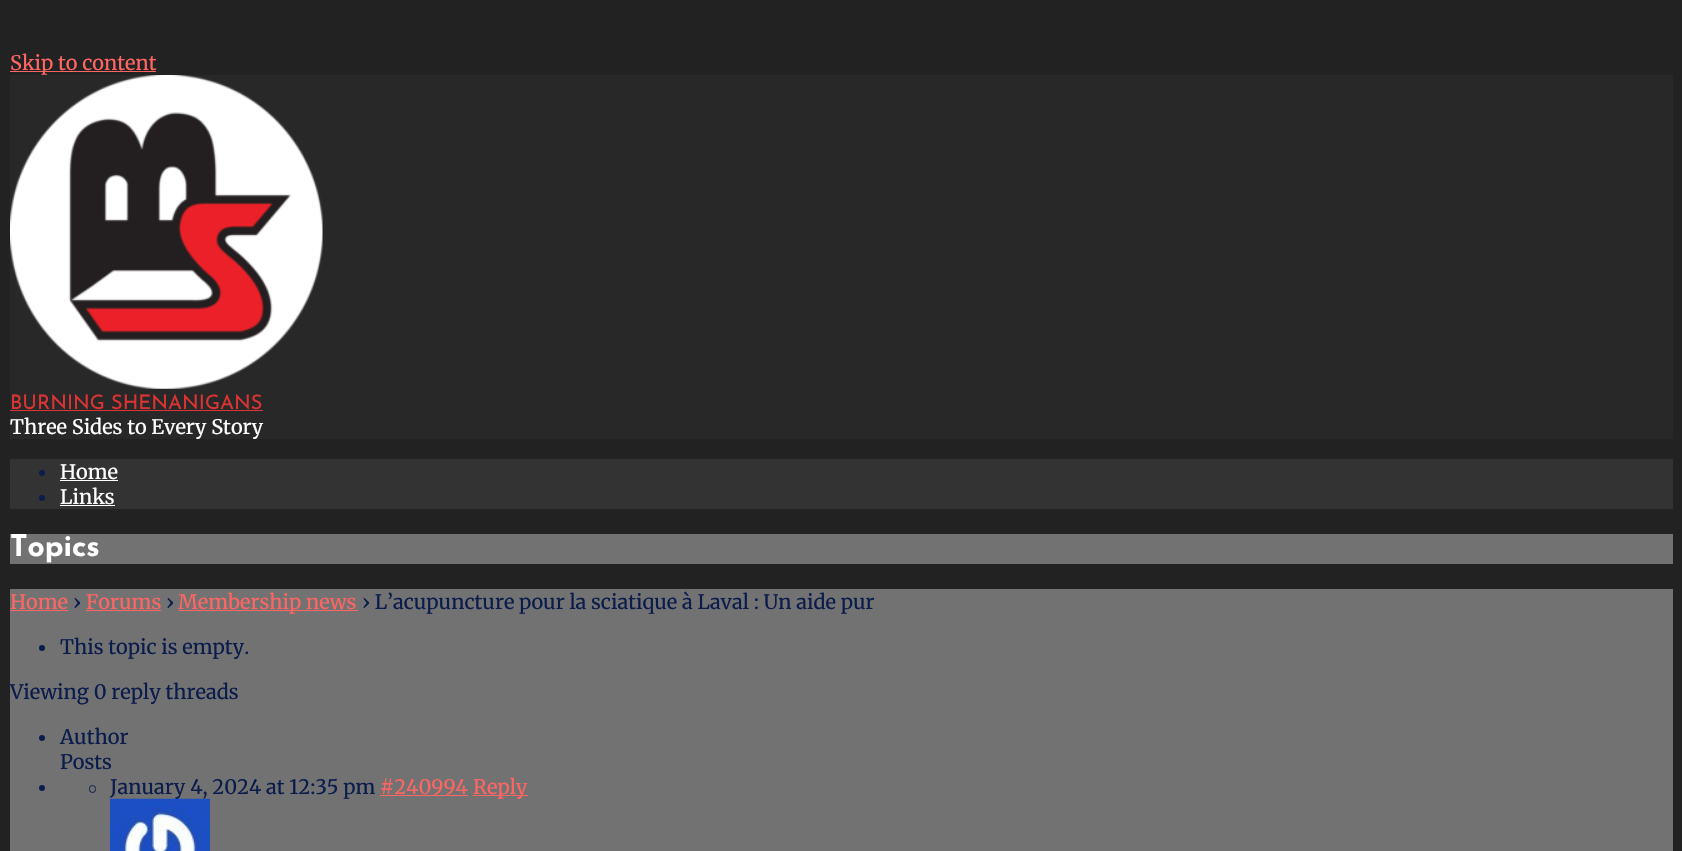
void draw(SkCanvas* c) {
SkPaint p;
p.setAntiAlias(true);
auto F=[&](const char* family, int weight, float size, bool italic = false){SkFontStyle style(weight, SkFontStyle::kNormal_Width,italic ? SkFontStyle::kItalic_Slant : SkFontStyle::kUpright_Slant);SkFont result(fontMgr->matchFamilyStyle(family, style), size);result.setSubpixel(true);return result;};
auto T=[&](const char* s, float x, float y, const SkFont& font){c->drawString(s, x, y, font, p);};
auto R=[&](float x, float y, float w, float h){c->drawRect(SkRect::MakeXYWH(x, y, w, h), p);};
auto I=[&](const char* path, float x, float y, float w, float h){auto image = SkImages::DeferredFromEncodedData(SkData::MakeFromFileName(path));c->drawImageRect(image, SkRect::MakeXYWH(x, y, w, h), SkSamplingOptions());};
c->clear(0xff222222);
p.setColor(0xffff6663);
R(10,71,146,1);
auto f1 = F("Merriweather",400,20);
T("Skip to content",10,70,f1);
p.setColor(0xff282828);
R(10,75,1663,364);
I("1.png",10,75,313,314);
auto f2 = F("Josefin Sans",400,20);
p.setColor(0xffdd3333);
T("BURNING SHENANIGANS",10,409,f2);
R(10,410,253,1);
p.setColor(0xffffffff);
T("Three Sides to Every Story",10,434,f1);
p.setColor(0xff333333);
R(10,459,1663,50);
p.setColor(0xff0a1c4c);
c->drawCircle(42,473,3,p);
p.setColor(0xffffffff);
T("Home",60,479,f1);
R(60,480,58,1);
p.setColor(0xff0a1c4c);
c->drawCircle(42,498,3,p);
p.setColor(0xffffffff);
T("Links",60,504,f1);
R(60,505,55,1);
p.setColor(0xff727272);
R(10,534,1663,30);
auto f3 = F("Josefin Sans",700,30);
p.setColor(0xffffffff);
T("Topics",10,556,f3);
p.setColor(0xff727272);
R(10,589,1663,262);
p.setColor(0xffff6663);
T("Home",10,609,f1);
R(10,610,58,1);
p.setColor(0xff0a1c4c);
T("›",73,609,f1);
p.setColor(0xffff6663);
T("Forums",86,609,f1);
R(86,610,75,1);
p.setColor(0xff0a1c4c);
T("›",166,609,f1);
p.setColor(0xffff6663);
R(179,610,179,1);
T("Membership news",178,609,f1);
p.setColor(0xff0a1c4c);
T("› L’acupuncture pour la sciatique à Laval : Un aide pur",362,609,f1);
c->drawCircle(42,648,3,p);
T("This topic is empty.",60,654,f1);
T("Viewing 0 reply threads",10,699,f1);
c->drawCircle(42,738,3,p);
T("Author",60,744,f1);
T("Posts",60,769,f1);
c->drawCircle(42,788,3,p);
p.setStroke(true);
p.setStrokeWidth(1);
c->drawRoundRect(SkRect::MakeXYWH(89.5,785.5,6,7),3,3,p);
p.setStroke(false);
T("January 4, 2024 at 12:35 pm",110,794,f1);
p.setColor(0xffff6663);
T("#240994",380,794,f1);
R(380,795,88,1);
R(473,795,55,1);
T("Reply",473,794,f1);
I("2.png",110,798,100,53);
}
